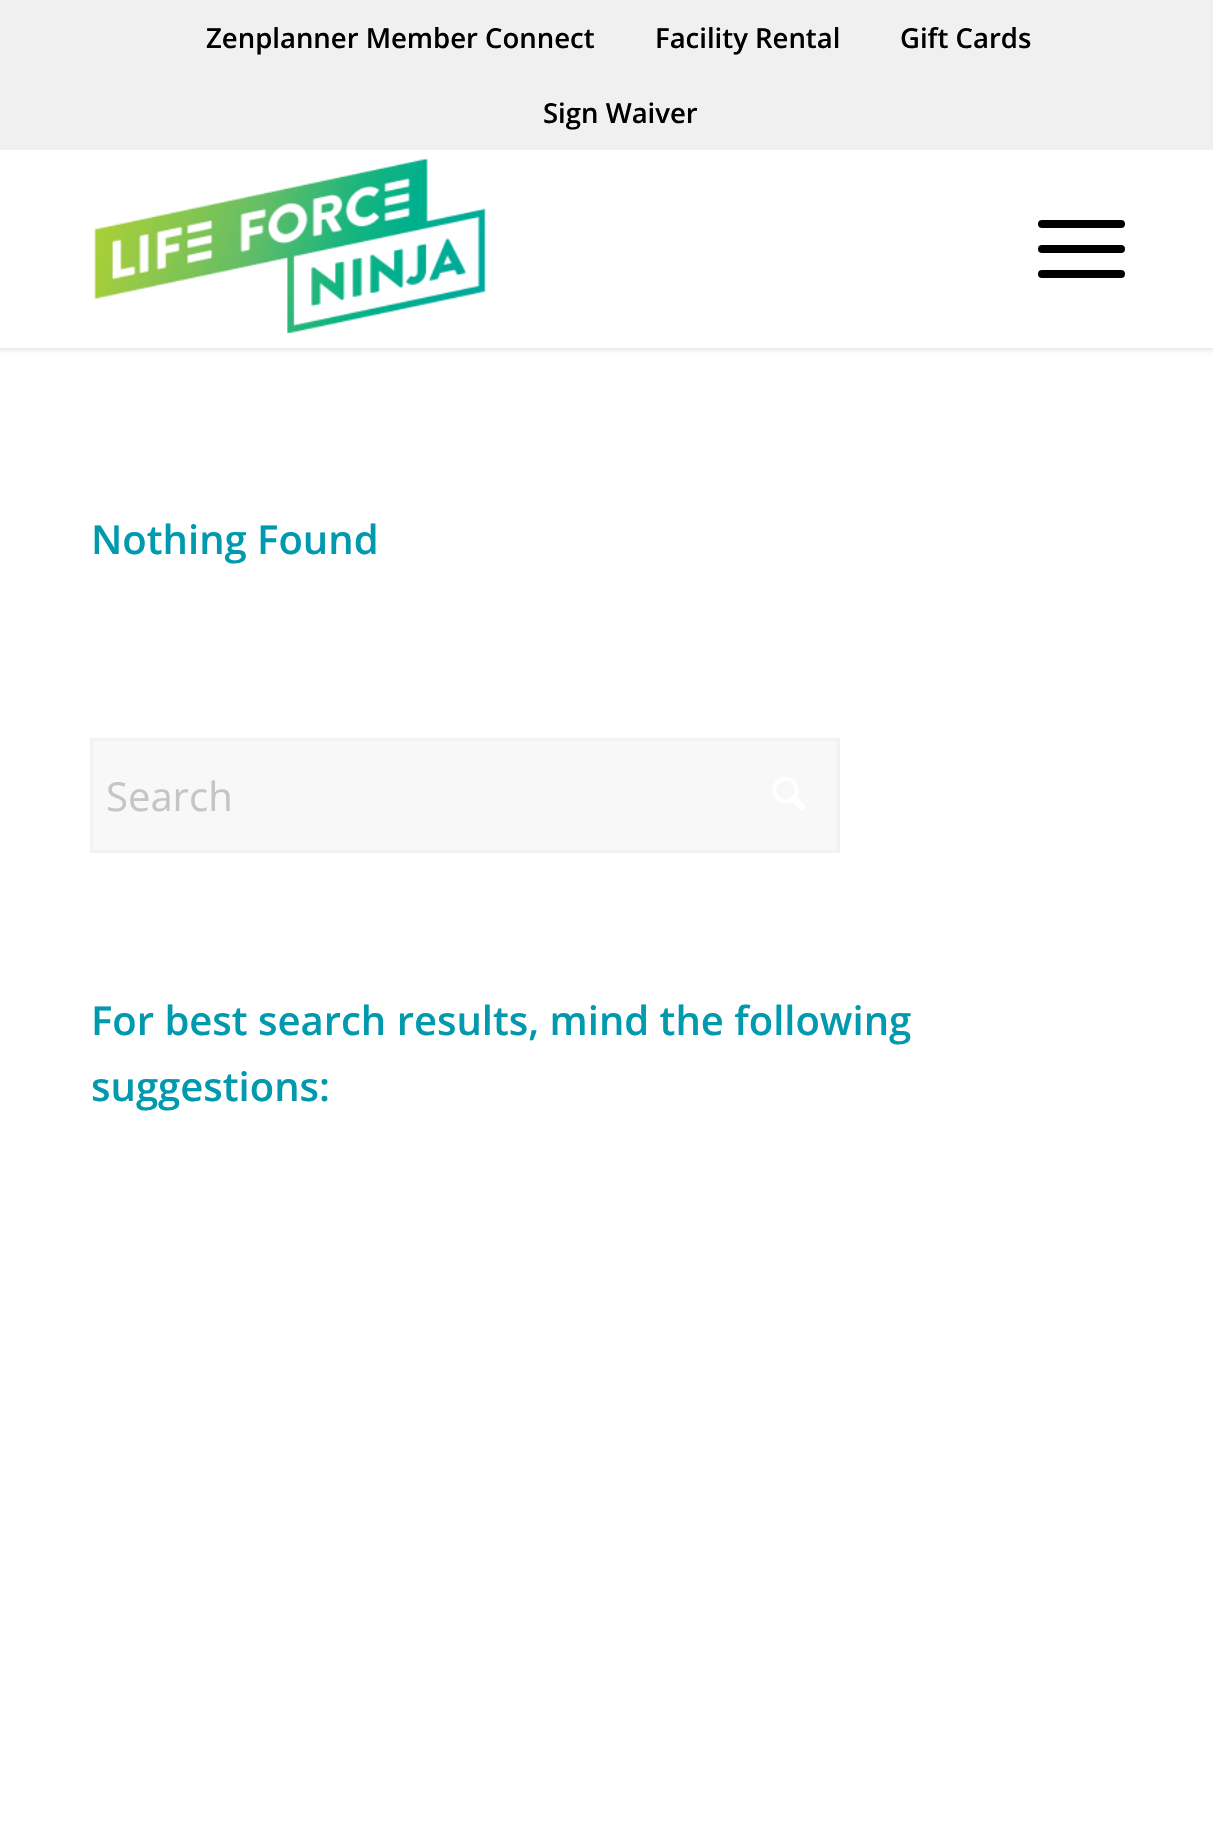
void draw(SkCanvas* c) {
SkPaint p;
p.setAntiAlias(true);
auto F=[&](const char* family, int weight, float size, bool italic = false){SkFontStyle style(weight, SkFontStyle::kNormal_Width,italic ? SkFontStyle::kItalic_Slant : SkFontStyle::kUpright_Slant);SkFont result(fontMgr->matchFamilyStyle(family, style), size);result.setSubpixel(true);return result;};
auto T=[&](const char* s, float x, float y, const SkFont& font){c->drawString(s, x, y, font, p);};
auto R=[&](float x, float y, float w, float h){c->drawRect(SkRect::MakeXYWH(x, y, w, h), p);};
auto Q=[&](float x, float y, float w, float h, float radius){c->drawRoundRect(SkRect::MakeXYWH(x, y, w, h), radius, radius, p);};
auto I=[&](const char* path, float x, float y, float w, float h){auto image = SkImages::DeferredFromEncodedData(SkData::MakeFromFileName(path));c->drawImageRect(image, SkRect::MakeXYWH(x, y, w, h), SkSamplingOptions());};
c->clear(0xffffffff);
p.setColor(0x1a000000);
p.setMaskFilter(SkMaskFilter::MakeBlur(kNormal_SkBlurStyle, 2.5));
c->drawRect(SkRect::MakeXYWH(-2,-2,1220,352),p);
p.setMaskFilter(nullptr);
p.setColor(0xfff0f0f0);
R(0,0,1213,150);
auto f1 = F("Open Sans",600,27.5);
p.setColor(0xff000000);
T("Zenplanner Member Connect",206,48,f1);
T("Facility Rental",655,48,f1);
T("Gift Cards",900,48,f1);
T("Sign Waiver",543,123,f1);
p.setColor(0xffffffff);
R(0,150,1213,198);
I("1.png",93,158,394,177);
p.setColor(0xff000000);
Q(1038,245,87,8,4);
Q(1038,220,87,8,4);
Q(1038,270,87,8,4);
auto f2 = F("Open Sans",600,40);
p.setColor(0xff0099ad);
T("Nothing Found",91,554,f2);
p.setColor(0xfff8f8f8);
c->drawRect(SkRect::MakeXYWH(91.5,739.5,747,112),p);
p.setStroke(true);
p.setStrokeWidth(3);
p.setColor(0xfff2f2f2);
c->drawRect(SkRect::MakeXYWH(91.5,739.5,747,112),p);
auto f3 = F("Open Sans",400,40);
p.setStroke(false);
p.setColor(0xffc5c5c5);
T("Search",106,811,f3);
I("2.png",772,777,34,33);
p.setColor(0xff0099ad);
T("For best search results, mind the following",91,1035,f2);
T("suggestions:",91,1101,f2);
}
